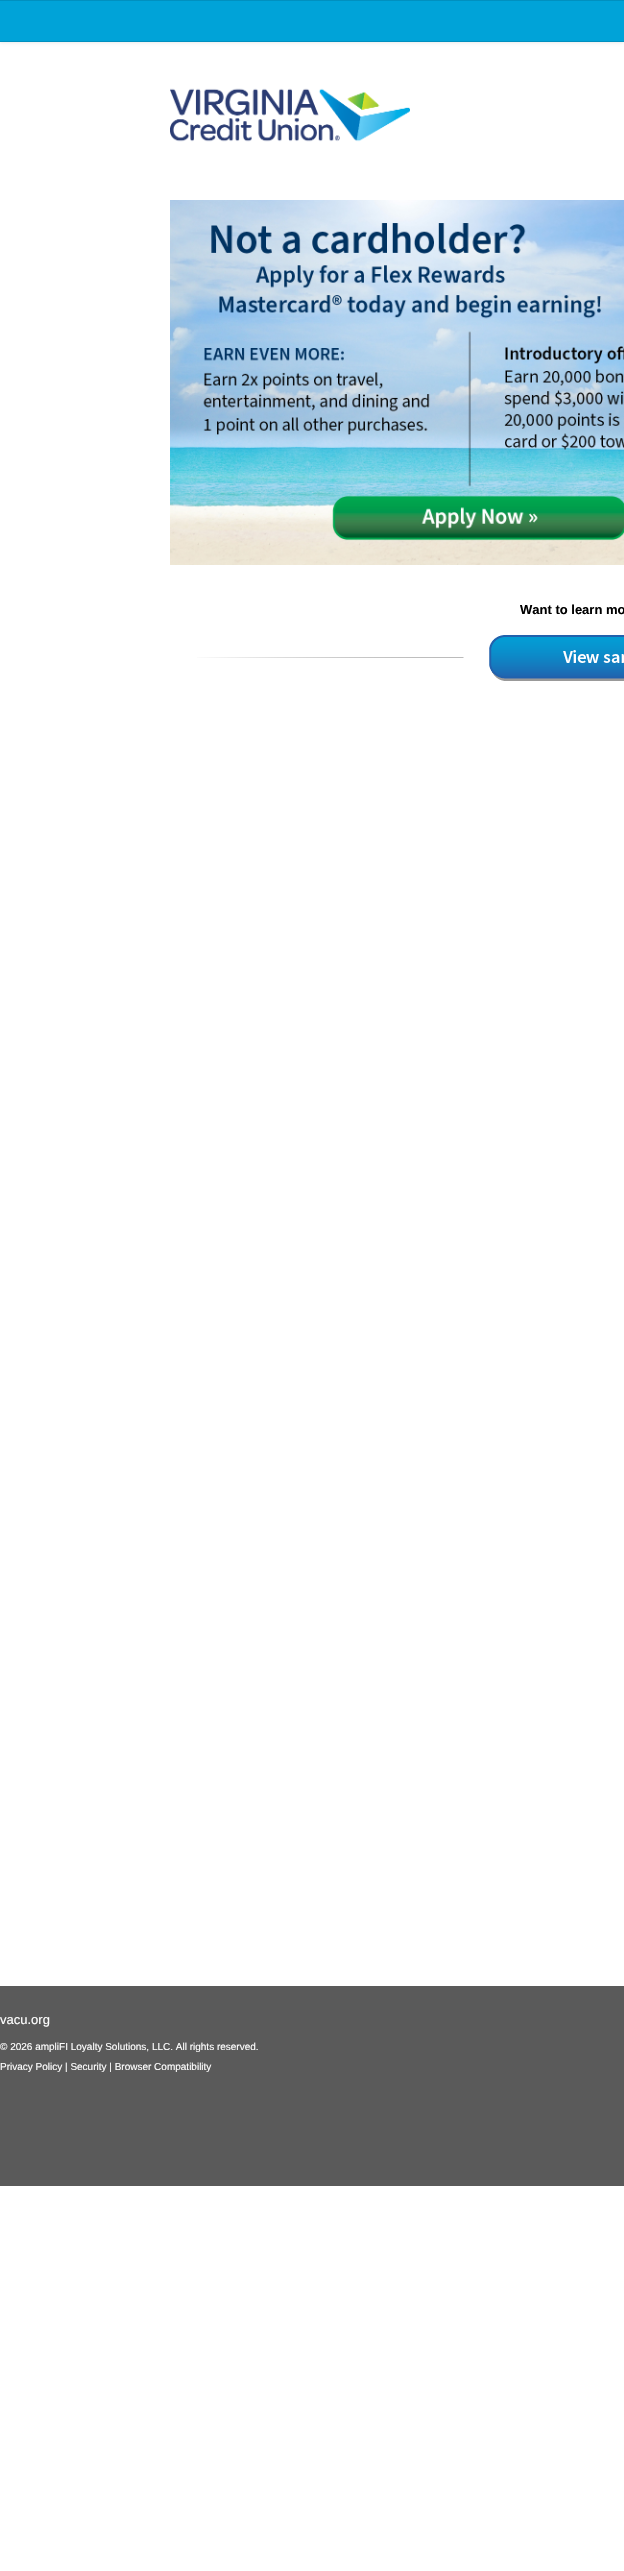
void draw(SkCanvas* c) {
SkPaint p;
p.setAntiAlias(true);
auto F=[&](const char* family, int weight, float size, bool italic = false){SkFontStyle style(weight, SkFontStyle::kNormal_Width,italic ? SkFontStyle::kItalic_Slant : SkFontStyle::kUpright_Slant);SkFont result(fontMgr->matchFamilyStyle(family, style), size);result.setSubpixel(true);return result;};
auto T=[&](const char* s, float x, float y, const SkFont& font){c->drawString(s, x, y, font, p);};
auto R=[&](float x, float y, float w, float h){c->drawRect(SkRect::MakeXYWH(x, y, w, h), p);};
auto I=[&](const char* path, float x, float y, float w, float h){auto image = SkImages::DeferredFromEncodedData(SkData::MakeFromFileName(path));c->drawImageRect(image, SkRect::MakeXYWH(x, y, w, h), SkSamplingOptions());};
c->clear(0xffffffff);
p.setColor(0x14000000);
p.setMaskFilter(SkMaskFilter::MakeBlur(kNormal_SkBlurStyle, 1.5));
c->drawRect(SkRect::MakeXYWH(0,1,624,42),p);
p.setMaskFilter(nullptr);
p.setColor(0xff00a3d8);
R(0,1,624,40);
p.setColor(0xff0090bf);
R(0,0,624,1);
R(0,41,624,1);
I("1.png",170,88,240,54);
I("2.png",170,200,454,365);
auto f1 = F("Liberation Sans",700,13);
p.setColor(0xff000000);
T("Want to learn mo",520,614,f1);
I("3.png",197,635,427,46);
p.setColor(0xff5a5a5a);
R(0,1986,624,200);
auto f2 = F("Liberation Sans",400,13);
p.setColor(0xffffffff);
T("vacu.org",0,2024,f2);
auto f3 = F("Liberation Sans",400,10);
T("© 2026 ampliFI Loyalty Solutions, LLC. All rights reserved.",0,2050,f3);
T("Privacy Policy | Security | Browser Compatibility",0,2070,f3);
}
